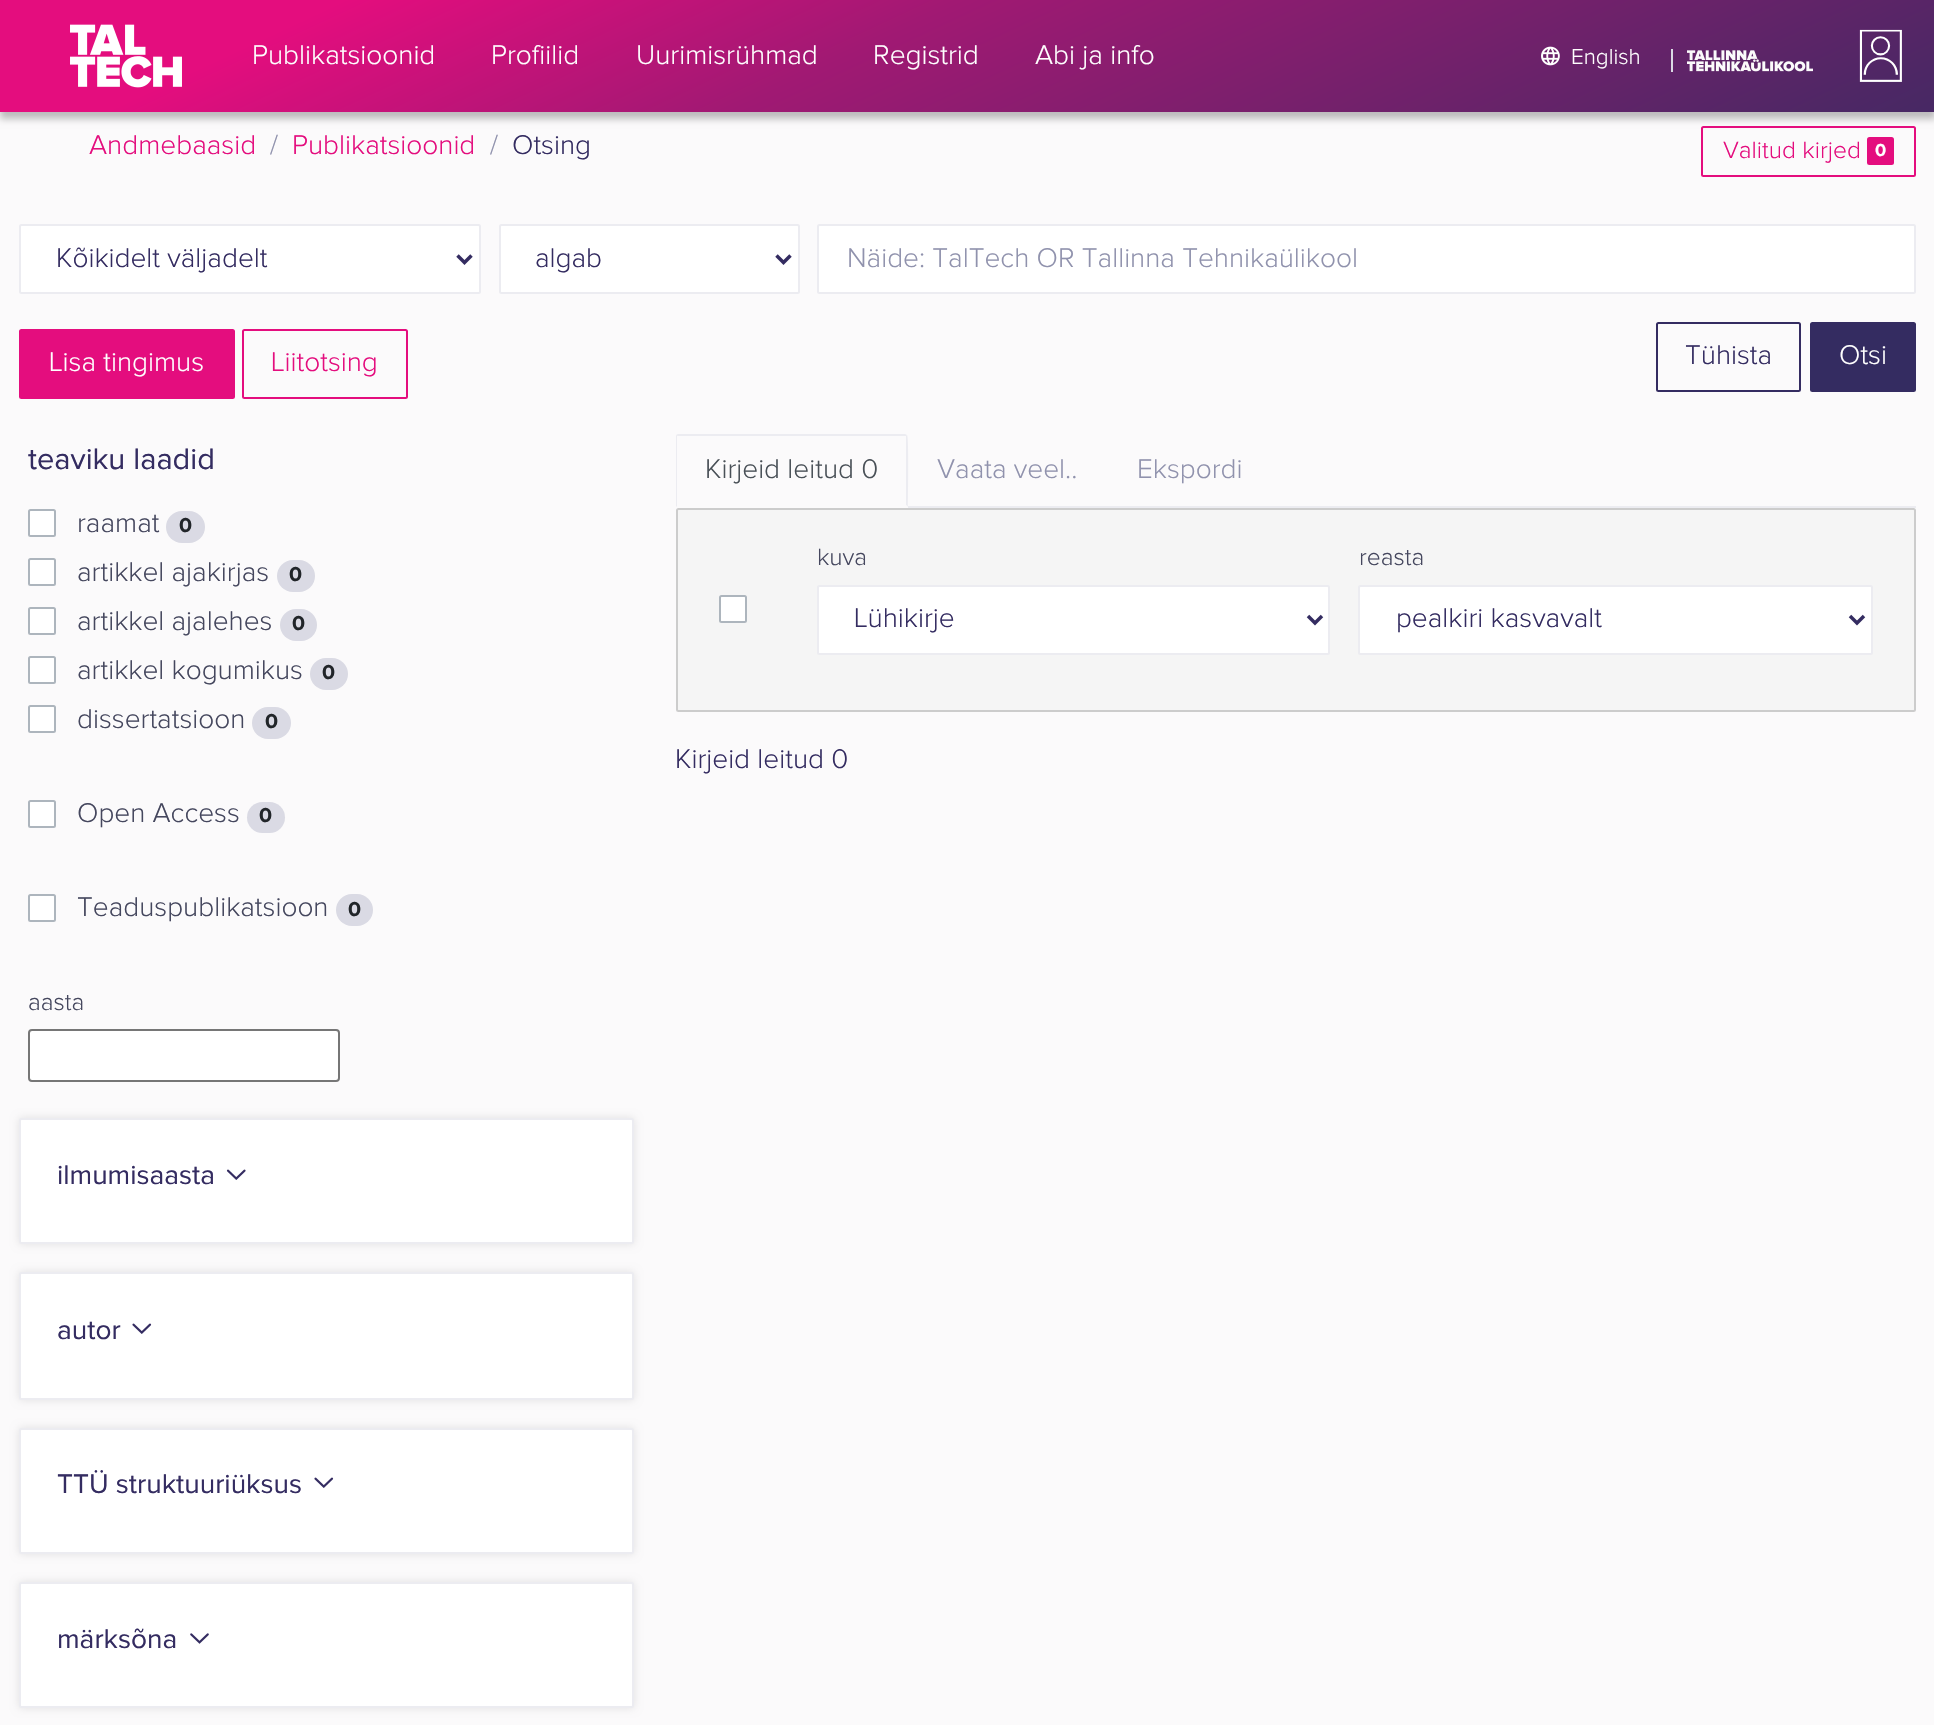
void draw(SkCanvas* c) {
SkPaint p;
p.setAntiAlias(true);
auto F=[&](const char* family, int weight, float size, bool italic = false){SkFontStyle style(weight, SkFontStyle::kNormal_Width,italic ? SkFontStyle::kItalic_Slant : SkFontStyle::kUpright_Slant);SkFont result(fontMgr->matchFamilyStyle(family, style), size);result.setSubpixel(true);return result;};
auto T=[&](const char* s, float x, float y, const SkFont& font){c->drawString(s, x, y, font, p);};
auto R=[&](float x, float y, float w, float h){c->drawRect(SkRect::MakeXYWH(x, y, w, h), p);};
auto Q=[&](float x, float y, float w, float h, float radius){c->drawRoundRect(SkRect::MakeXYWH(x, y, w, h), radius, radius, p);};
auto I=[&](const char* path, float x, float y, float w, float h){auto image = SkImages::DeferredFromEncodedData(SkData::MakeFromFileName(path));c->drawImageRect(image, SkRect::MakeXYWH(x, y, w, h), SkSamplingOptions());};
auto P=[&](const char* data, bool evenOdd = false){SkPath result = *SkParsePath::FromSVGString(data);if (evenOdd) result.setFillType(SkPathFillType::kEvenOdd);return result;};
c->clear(0xfffbfafb);
p.setColor(0x40000000);
p.setMaskFilter(SkMaskFilter::MakeBlur(kNormal_SkBlurStyle, 3.5));
c->drawRect(SkRect::MakeXYWH(0,7,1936,112),p);
p.setMaskFilter(nullptr);
{
const SkColor colors[] = {0xffe40d7e,0xffa11973,0xff4e2765,0xff342c61};
const float stops[] = {.14,.39,.84,1};
const SkPoint ends[] = {{773,-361}, {1213,581}};
p.setShader(SkGradientShader::MakeLinear(ends, colors, stops, 4, SkTileMode::kClamp));
p.setAlpha(255);
}
R(0,0,1934,112);
I("1.png",70,24,112,64);
auto f1 = F("Proxima Nova",300,28);
p.setShader(nullptr);
p.setColor(0xffffffff);
T("Publikatsioonid",252,64,f1);
T("Profiilid",491,64,f1);
T("Uurimisrühmad",636,64,f1);
T("Registrid",873,64,f1);
T("Abi ja info",1035,64,f1);
I("2.png",1541,46,19,20);
auto f2 = F("Proxima Nova",300,22.5);
T("English",1571,64,f2);
p.setColor(0xffdadae4);
R(1671,49,2,23);
I("3.png",1687,50,126,22);
I("4.png",1859,29,43,53);
p.setColor(0xffe40d7e);
T("Andmebaasid",89,154,f1);
p.setColor(0xff9092ad);
T("/",270,154,f1);
p.setColor(0xffe40d7e);
T("Publikatsioonid",292,154,f1);
p.setColor(0xff9092ad);
T("/",490,154,f1);
p.setColor(0xff342c61);
T("Otsing",512,154,f1);
p.setStroke(true);
p.setStrokeWidth(2);
p.setColor(0xffe40d7e);
c->drawRoundRect(SkRect::MakeXYWH(1702,127,213,49),1.5,1.5,p);
auto f3 = F("Proxima Nova",300,24.5);
p.setStroke(false);
T("Valitud kirjed",1723,158,f3);
Q(1867,137,27,28,2.5);
auto f4 = F("Proxima Nova",700,18);
p.setColor(0xffffffff);
T("0",1875,156,f4);
c->drawRoundRect(SkRect::MakeXYWH(20,225,460,68),1.5,1.5,p);
p.setStroke(true);
p.setColor(0xffececf1);
c->drawRoundRect(SkRect::MakeXYWH(20,225,460,68),1.5,1.5,p);
p.setStrokeWidth(3.5);
p.setColor(0xff342c61);
c->drawPath(P("M457.5 255.5l7 7l7-7"),p);
p.setStroke(false);
T("Kõikidelt väljadelt",56,267,f1);
p.setColor(0xffffffff);
c->drawRoundRect(SkRect::MakeXYWH(500,225,299,68),1.5,1.5,p);
p.setStroke(true);
p.setStrokeWidth(2);
p.setColor(0xffececf1);
c->drawRoundRect(SkRect::MakeXYWH(500,225,299,68),1.5,1.5,p);
p.setStrokeWidth(3.5);
p.setColor(0xff342c61);
c->drawPath(P("M776.5 255.5l7 7l7-7"),p);
p.setStroke(false);
T("algab",535,267,f1);
p.setColor(0xffffffff);
c->drawRoundRect(SkRect::MakeXYWH(818,225,1097,68),1.5,1.5,p);
p.setStroke(true);
p.setStrokeWidth(2);
p.setColor(0xffececf1);
c->drawRoundRect(SkRect::MakeXYWH(818,225,1097,68),1.5,1.5,p);
p.setStroke(false);
p.setColor(0xff9092ad);
T("Näide: TalTech OR Tallinna Tehnikaülikool",847,267,f1);
p.setColor(0xffe40d7e);
c->drawRoundRect(SkRect::MakeXYWH(20,330,214,68),1.5,1.5,p);
p.setStroke(true);
c->drawRoundRect(SkRect::MakeXYWH(20,330,214,68),1.5,1.5,p);
p.setStroke(false);
p.setColor(0xffffffff);
T("Lisa tingimus",49,371,f1);
p.setStroke(true);
p.setColor(0xffe40d7e);
c->drawRoundRect(SkRect::MakeXYWH(243,330,164,68),1.5,1.5,p);
p.setStroke(false);
T("Liitotsing",271,371,f1);
p.setStroke(true);
p.setColor(0xff342c61);
c->drawRoundRect(SkRect::MakeXYWH(1657,323,143,68),1.5,1.5,p);
p.setStroke(false);
T("Tühista",1685,364,f1);
c->drawRoundRect(SkRect::MakeXYWH(1811,323,104,68),1.5,1.5,p);
p.setStroke(true);
c->drawRoundRect(SkRect::MakeXYWH(1811,323,104,68),1.5,1.5,p);
p.setStroke(false);
p.setColor(0xffffffff);
T("Otsi",1839,364,f1);
auto f5 = F("Proxima Nova",400,30.75);
p.setColor(0xff342c61);
T("teaviku laadid",28,469,f5);
p.setColor(0xffffffff);
c->drawRoundRect(SkRect::MakeXYWH(29,510,26,26),1.5,1.5,p);
p.setStroke(true);
p.setColor(0xffadb5bd);
c->drawRoundRect(SkRect::MakeXYWH(29,510,26,26),1.5,1.5,p);
p.setStroke(false);
p.setColor(0xff45475e);
T("raamat",77,532,f1);
p.setColor(0xffdadae4);
Q(166,511,39,32,16);
auto f6 = F("Proxima Nova",700,21);
p.setColor(0xff212529);
T("0",179,532,f6);
p.setColor(0xffffffff);
c->drawRoundRect(SkRect::MakeXYWH(29,559,26,26),1.5,1.5,p);
p.setStroke(true);
p.setColor(0xffadb5bd);
c->drawRoundRect(SkRect::MakeXYWH(29,559,26,26),1.5,1.5,p);
p.setStroke(false);
p.setColor(0xff45475e);
T("artikkel ajakirjas",77,581,f1);
p.setColor(0xffdadae4);
Q(277,560,38,32,16);
p.setColor(0xff212529);
T("0",289,581,f6);
p.setColor(0xffffffff);
c->drawRoundRect(SkRect::MakeXYWH(29,608,26,26),1.5,1.5,p);
p.setStroke(true);
p.setColor(0xffadb5bd);
c->drawRoundRect(SkRect::MakeXYWH(29,608,26,26),1.5,1.5,p);
p.setStroke(false);
p.setColor(0xff45475e);
T("artikkel ajalehes",77,630,f1);
p.setColor(0xffdadae4);
Q(280,609,37,32,16);
p.setColor(0xff212529);
T("0",292,630,f6);
p.setColor(0xffffffff);
c->drawRoundRect(SkRect::MakeXYWH(29,657,26,26),1.5,1.5,p);
p.setStroke(true);
p.setColor(0xffadb5bd);
c->drawRoundRect(SkRect::MakeXYWH(29,657,26,26),1.5,1.5,p);
p.setStroke(false);
p.setColor(0xff45475e);
T("artikkel kogumikus",77,679,f1);
p.setColor(0xffdadae4);
Q(310,658,38,32,16);
p.setColor(0xff212529);
T("0",322,679,f6);
p.setColor(0xffffffff);
c->drawRoundRect(SkRect::MakeXYWH(29,706,26,26),1.5,1.5,p);
p.setStroke(true);
p.setColor(0xffadb5bd);
c->drawRoundRect(SkRect::MakeXYWH(29,706,26,26),1.5,1.5,p);
p.setStroke(false);
p.setColor(0xff45475e);
T("dissertatsioon",77,728,f1);
p.setColor(0xffdadae4);
Q(252,707,39,32,16);
p.setColor(0xff212529);
T("0",265,728,f6);
p.setColor(0xffffffff);
c->drawRoundRect(SkRect::MakeXYWH(29,801,26,26),1.5,1.5,p);
p.setStroke(true);
p.setColor(0xffadb5bd);
c->drawRoundRect(SkRect::MakeXYWH(29,801,26,26),1.5,1.5,p);
p.setStroke(false);
p.setColor(0xff45475e);
T("Open Access",77,822,f1);
p.setColor(0xffdadae4);
Q(247,802,38,31,15.5);
p.setColor(0xff212529);
T("0",259,822,f6);
p.setColor(0xffffffff);
c->drawRoundRect(SkRect::MakeXYWH(29,895,26,26),1.5,1.5,p);
p.setStroke(true);
p.setColor(0xffadb5bd);
c->drawRoundRect(SkRect::MakeXYWH(29,895,26,26),1.5,1.5,p);
p.setStroke(false);
p.setColor(0xff45475e);
T("Teaduspublikatsioon",77,916,f1);
p.setColor(0xffdadae4);
Q(336,894,37,32,16);
p.setColor(0xff212529);
T("0",348,916,f6);
p.setColor(0xff45475e);
T("aasta",28,1010,f3);
p.setColor(0xffffffff);
c->drawRoundRect(SkRect::MakeXYWH(29,1030,310,51),3,3,p);
p.setStroke(true);
p.setColor(0xff767676);
c->drawRoundRect(SkRect::MakeXYWH(29,1030,310,51),3,3,p);
p.setStroke(false);
p.setColor(0x1a000000);
p.setMaskFilter(SkMaskFilter::MakeBlur(kNormal_SkBlurStyle, 4.5));
c->drawRoundRect(SkRect::MakeXYWH(19,1118,615,126),2.5,2.5,p);
p.setMaskFilter(nullptr);
p.setColor(0xffffffff);
c->drawRoundRect(SkRect::MakeXYWH(20,1119,613,124),1.5,1.5,p);
p.setStroke(true);
p.setColor(0xffececf1);
c->drawRoundRect(SkRect::MakeXYWH(20,1119,613,124),1.5,1.5,p);
auto f7 = F("Proxima Nova",400,28);
p.setStroke(false);
p.setColor(0xff342c61);
T("ilmumisaasta",57,1184,f7);
I("5.png",226,1169,20,11);
p.setColor(0x1a000000);
p.setMaskFilter(SkMaskFilter::MakeBlur(kNormal_SkBlurStyle, 4.5));
c->drawRoundRect(SkRect::MakeXYWH(19,1272,615,128),2.5,2.5,p);
p.setMaskFilter(nullptr);
p.setColor(0xffffffff);
c->drawRoundRect(SkRect::MakeXYWH(20,1273,613,126),1.5,1.5,p);
p.setStroke(true);
p.setColor(0xffececf1);
c->drawRoundRect(SkRect::MakeXYWH(20,1273,613,126),1.5,1.5,p);
p.setStroke(false);
p.setColor(0xff342c61);
T("autor",57,1339,f7);
I("6.png",132,1323,20,11);
p.setColor(0x1a000000);
p.setMaskFilter(SkMaskFilter::MakeBlur(kNormal_SkBlurStyle, 4.5));
c->drawRoundRect(SkRect::MakeXYWH(19,1428,615,126),2.5,2.5,p);
p.setMaskFilter(nullptr);
p.setColor(0xffffffff);
c->drawRoundRect(SkRect::MakeXYWH(20,1429,613,124),1.5,1.5,p);
p.setStroke(true);
p.setColor(0xffececf1);
c->drawRoundRect(SkRect::MakeXYWH(20,1429,613,124),1.5,1.5,p);
p.setStroke(false);
p.setColor(0xff342c61);
T("TTÜ struktuuriüksus",57,1493,f7);
I("6.png",314,1477,20,11);
p.setColor(0x1a000000);
p.setMaskFilter(SkMaskFilter::MakeBlur(kNormal_SkBlurStyle, 4.5));
c->drawRoundRect(SkRect::MakeXYWH(19,1582,615,126),2.5,2.5,p);
p.setMaskFilter(nullptr);
p.setColor(0xffffffff);
c->drawRoundRect(SkRect::MakeXYWH(20,1583,613,124),1.5,1.5,p);
p.setStroke(true);
p.setColor(0xffececf1);
c->drawRoundRect(SkRect::MakeXYWH(20,1583,613,124),1.5,1.5,p);
p.setStroke(false);
p.setColor(0xff342c61);
T("märksõna",57,1648,f7);
I("7.png",190,1633,19,11);
p.setColor(0xffececf1);
R(908,506,1008,2);
c->drawPath(P("M678 434l-2 1l2 1h228l1-1l-2-1z"),p);
c->drawPath(P("M907 435c2 2 1 64 1 72l-2-2v-69z"),p);
p.setColor(0xfffbfafb);
c->drawPath(P("M676 508l1-2h229v-1l2 2z"),p);
p.setColor(0xffececf1);
c->drawPath(P("M676 435v2v70l1-1v-70h1z"),p);
p.setColor(0xff495057);
T("Kirjeid leitud 0",705,478,f1);
p.setColor(0xff9092ad);
T("Vaata veel..",937,478,f1);
T("Ekspordi",1137,478,f1);
p.setColor(0xfff5f5f5);
c->drawRoundRect(SkRect::MakeXYWH(677,509,1238,202),1.5,1.5,p);
p.setStroke(true);
p.setColor(0xffcccccc);
c->drawRoundRect(SkRect::MakeXYWH(677,509,1238,202),1.5,1.5,p);
p.setStroke(false);
p.setColor(0xffffffff);
c->drawRoundRect(SkRect::MakeXYWH(720,596,26,26),1.5,1.5,p);
p.setStroke(true);
p.setColor(0xffadb5bd);
c->drawRoundRect(SkRect::MakeXYWH(720,596,26,26),1.5,1.5,p);
p.setStroke(false);
p.setColor(0xff45475e);
T("kuva",817,565,f3);
p.setColor(0xffffffff);
c->drawRoundRect(SkRect::MakeXYWH(818,586,511,68),1.5,1.5,p);
p.setStroke(true);
p.setColor(0xffececf1);
c->drawRoundRect(SkRect::MakeXYWH(818,586,511,68),1.5,1.5,p);
p.setStrokeWidth(3.5);
p.setColor(0xff342c61);
c->drawPath(P("M1308 616l7 7l7-7"),p);
p.setStroke(false);
T("Lühikirje",854,627,f1);
p.setColor(0xff45475e);
T("reasta",1359,565,f3);
p.setColor(0xffffffff);
c->drawRoundRect(SkRect::MakeXYWH(1359,586,513,68),1.5,1.5,p);
p.setStroke(true);
p.setStrokeWidth(2);
p.setColor(0xffececf1);
c->drawRoundRect(SkRect::MakeXYWH(1359,586,513,68),1.5,1.5,p);
p.setStrokeWidth(3.5);
p.setColor(0xff342c61);
c->drawPath(P("M1850 616l7 7l7-7"),p);
p.setStroke(false);
T("pealkiri kasvavalt",1396,627,f1);
T("Kirjeid leitud 0",675,768,f1);
}
